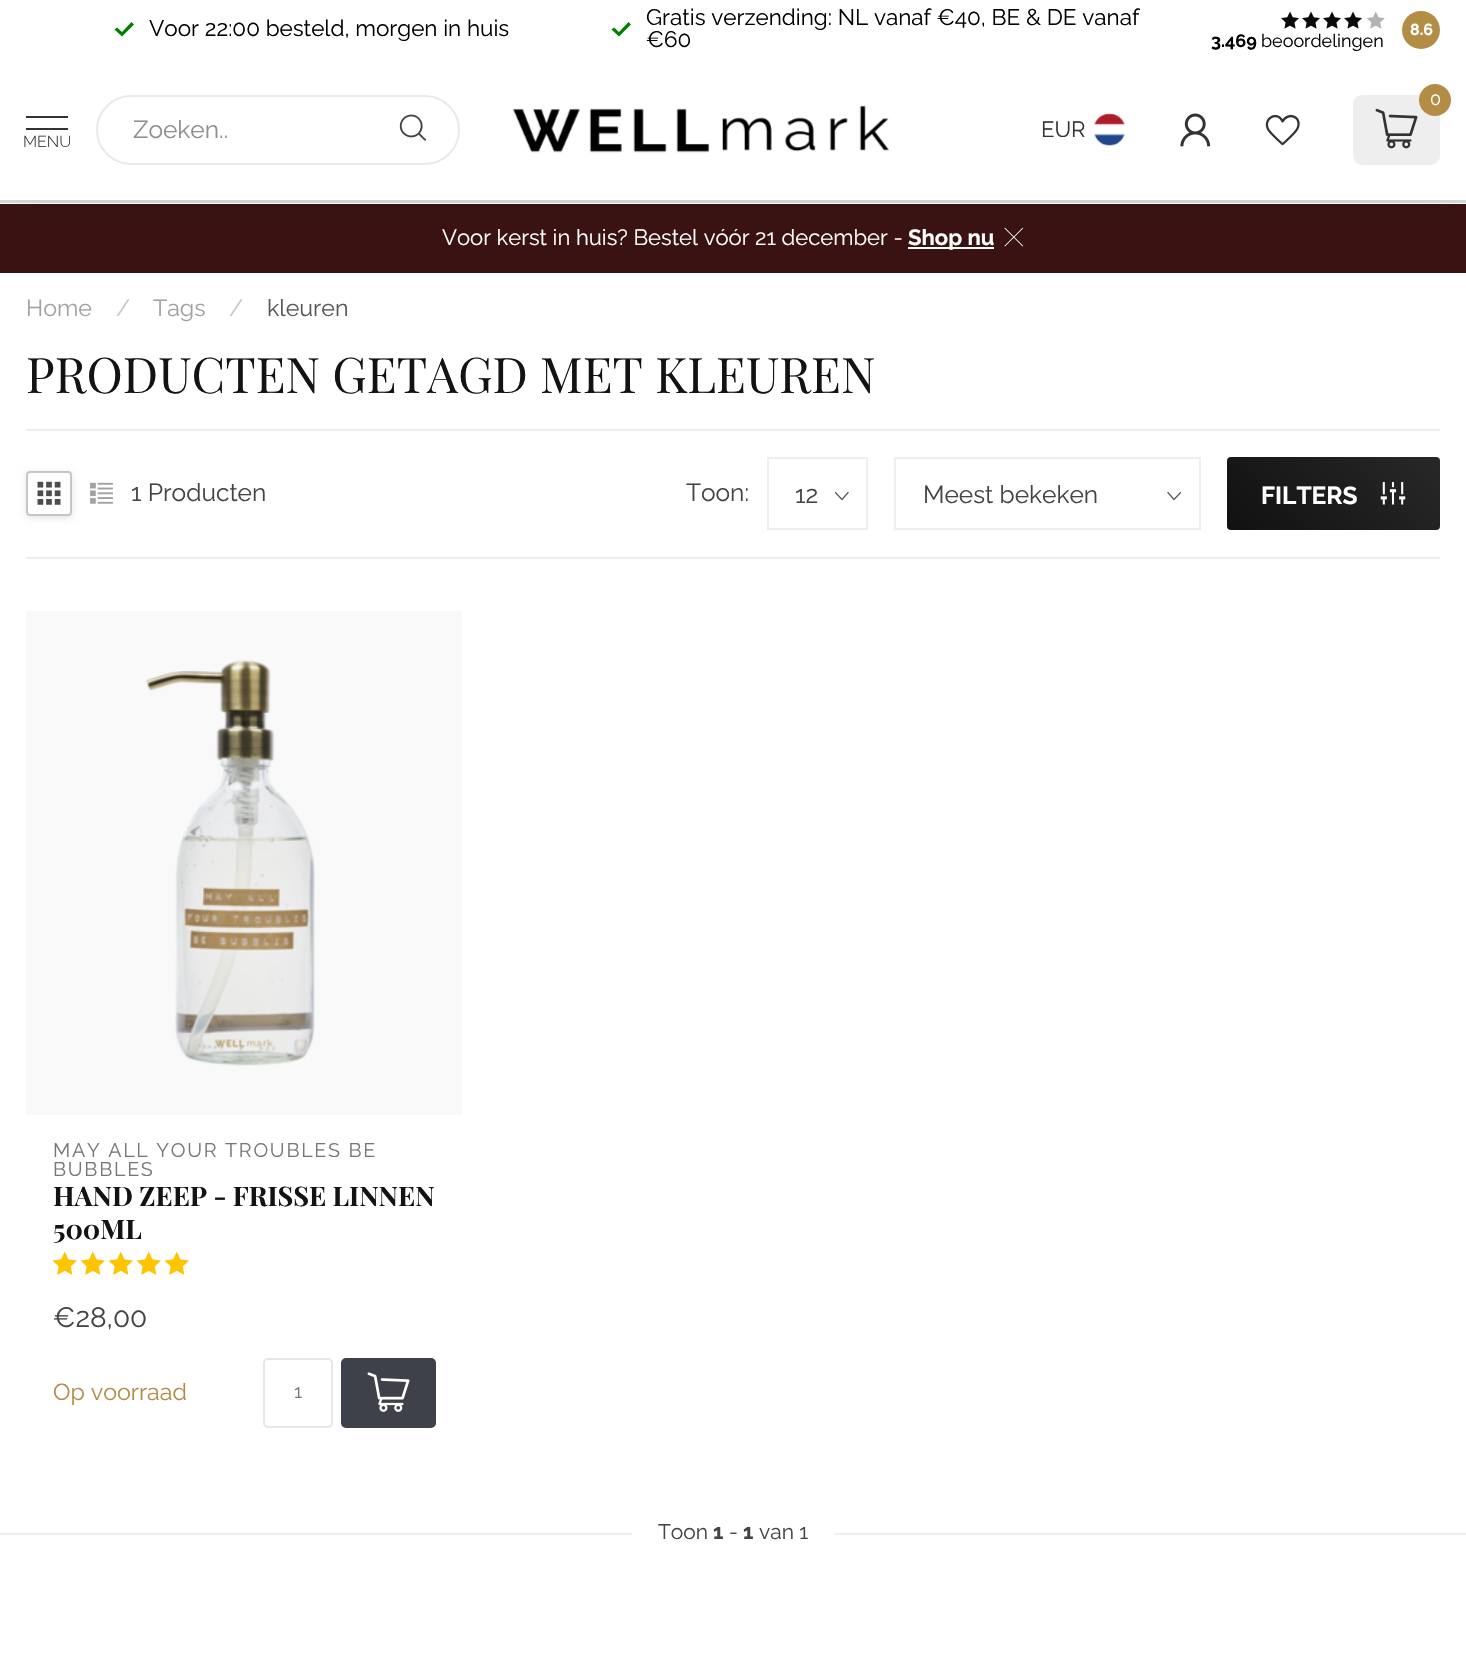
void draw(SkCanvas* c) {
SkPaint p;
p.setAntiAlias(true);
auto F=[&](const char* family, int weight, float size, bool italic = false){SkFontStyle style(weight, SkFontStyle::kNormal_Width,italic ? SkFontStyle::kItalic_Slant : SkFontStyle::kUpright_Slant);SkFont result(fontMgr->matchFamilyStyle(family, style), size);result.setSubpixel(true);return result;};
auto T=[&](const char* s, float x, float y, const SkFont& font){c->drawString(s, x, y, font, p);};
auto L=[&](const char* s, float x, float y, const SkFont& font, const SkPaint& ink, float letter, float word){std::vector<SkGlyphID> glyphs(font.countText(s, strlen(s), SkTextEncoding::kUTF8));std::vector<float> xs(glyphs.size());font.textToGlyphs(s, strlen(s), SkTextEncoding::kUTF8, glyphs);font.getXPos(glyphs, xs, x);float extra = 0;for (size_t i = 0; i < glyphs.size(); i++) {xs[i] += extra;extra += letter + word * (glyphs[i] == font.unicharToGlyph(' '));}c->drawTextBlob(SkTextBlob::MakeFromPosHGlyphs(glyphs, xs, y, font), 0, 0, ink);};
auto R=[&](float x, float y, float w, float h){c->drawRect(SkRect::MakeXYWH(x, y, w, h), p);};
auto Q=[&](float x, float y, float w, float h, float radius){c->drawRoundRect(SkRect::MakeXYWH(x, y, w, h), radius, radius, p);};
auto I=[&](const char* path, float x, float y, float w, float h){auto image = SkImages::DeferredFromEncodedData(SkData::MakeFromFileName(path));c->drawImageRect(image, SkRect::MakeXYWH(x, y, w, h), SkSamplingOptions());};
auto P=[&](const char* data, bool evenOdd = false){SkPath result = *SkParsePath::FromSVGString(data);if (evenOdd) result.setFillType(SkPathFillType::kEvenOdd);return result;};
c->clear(0xffffffff);
p.setColor(0xffdcdcdc);
R(0,200,1466,3);
p.setColor(0xff3a1212);
R(0,204,1466,69);
p.setColor(0xffffffff);
R(908,247,86,2);
I("9.png",1004,227,20,20);
p.setColor(0x12000000);
p.setMaskFilter(SkMaskFilter::MakeBlur(kNormal_SkBlurStyle, 17.5));
c->drawRect(SkRect::MakeXYWH(0,0,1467,200),p);
p.setMaskFilter(nullptr);
p.setColor(0xffffffff);
R(0,0,1466,200);
p.setColor(0xff008000);
c->drawPath(P("M122 36.5l-7.5-7l2.5-2l5 4.5l9.5-10l2.5 2.5z"),p);
auto f1 = F("Raleway",400,22.5);
p.setColor(0xff000000);
T("Voor 22:00 besteld, morgen in huis",149,36,f1);
p.setColor(0xff008000);
c->drawPath(P("M619 36.5l-7.5-7l2.5-2l5 4.5l9.5-10l2.5 2.5z"),p);
p.setColor(0xff000000);
T("Gratis verzending: NL vanaf €40, BE & DE vanaf",646,25,f1);
T("€60",646,47,f1);
p.setColor(0xffb38d46);
c->drawCircle(1421,30,19,p);
auto f2 = F("Raleway",700,16);
p.setColor(0xffffffff);
T("8.6",1410,35,f2);
I("1.png",1281,11,18,18);
I("1.png",1302,11,18,18);
I("1.png",1323,11,18,18);
I("1.png",1344,11,18,18);
I("2.png",1367,11,18,18);
auto f3 = F("Raleway",700,18);
p.setColor(0xff000000);
T("3.469",1211,47,f3);
auto f4 = F("Raleway",400,18);
T("beoordelingen",1261,47,f4);
p.setStroke(true);
p.setStrokeWidth(2);
p.setColor(0xffeaeaea);
c->drawRoundRect(SkRect::MakeXYWH(97,96,362,68),34,34,p);
auto f5 = F("Raleway",400,24.5);
p.setStroke(false);
p.setColor(0xff8f8f8f);
T("Zoeken..",133,138,f5);
I("3.png",399,114,27,27);
p.setColor(0xff333333);
R(26,116,42,2);
R(26,128,42,2);
auto f6 = F("Raleway",300,16);
T("MENU",23,147,f6);
I("4.png",512,105,377,48);
p.setColor(0xffeeeeee);
Q(1353,95,87,70,9);
p.setColor(0xffb38d46);
c->drawCircle(1435,100,16,p);
p.setColor(0xffffffff);
T("0",1430,105,f4);
I("5.png",1375,108,43,41);
auto f7 = F("Raleway",400,22.05);
p.setColor(0xff333333);
T("EUR",1041,137,f7);
I("6.png",1094,113,31,33);
I("7.png",1180,113,31,34);
I("8.png",1265,114,35,32);
p.setColor(0xffffffff);
T("Voor kerst in huis? Bestel vóór 21 december -",442,245,f7);
auto f8 = F("Raleway",700,22.05);
T("Shop nu",908,245,f8);
auto f9 = F("Raleway",400,23.25);
p.setColor(0xffa2a2a2);
T("Home",26,316,f9);
p.setColor(0xffc7c7c7);
T("/",116,316,f9);
p.setColor(0xffa2a2a2);
T("Tags",153,316,f9);
p.setColor(0xffc7c7c7);
T("/",229,316,f9);
p.setColor(0xff575757);
T("kleuren",267,316,f9);
auto f10 = F("Playfair Display",400,49);
p.setColor(0xff131313);
T("PRODUCTEN GETAGD MET KLEUREN",26,393,f10);
p.setColor(0xffeeeeee);
R(26,429,1414,2);
R(26,557,1414,2);
c->save();
c->clipPath(P("M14 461h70v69h-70zm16 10h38c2 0 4 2 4 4v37c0 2-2 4-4 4h-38c-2 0-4-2-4-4v-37c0-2 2-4 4-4z",true),true);
p.setColor(0x1a000000);
p.setMaskFilter(SkMaskFilter::MakeBlur(kNormal_SkBlurStyle, 3.5));
c->drawRoundRect(SkRect::MakeXYWH(26,473,46,45),4,4,p);
p.setMaskFilter(nullptr);
c->restore();
p.setStroke(true);
p.setColor(0xffc6c6c6);
c->drawRoundRect(SkRect::MakeXYWH(27,472,44,43),3,3,p);
I("10.png",37,481,24,24);
I("11.png",90,482,23,22);
p.setStroke(false);
p.setColor(0xff444444);
T("1 Producten",131,501,f5);
T("Toon:",686,501,f5);
c->save();
c->clipRect(SkRect::MakeXYWH(835,492,14,9));
p.setStroke(true);
p.setStrokeWidth(1.3);
p.setColor(0xff595959);
c->drawPath(P("M848.5 492l-6.5 7.5l-7-7.5"),p);
c->restore();
p.setStrokeWidth(2);
p.setColor(0xffeeeeee);
c->drawRect(SkRect::MakeXYWH(768,458,99,71),p);
p.setStroke(false);
p.setColor(0xff444444);
T("12",795,503,f5);
c->save();
c->clipRect(SkRect::MakeXYWH(1167,492,14,9));
p.setStroke(true);
p.setStrokeWidth(1.3);
p.setColor(0xff595959);
c->drawPath(P("M1181 492l-7 7.5l-6.5-7.5"),p);
c->restore();
p.setStrokeWidth(2);
p.setColor(0xffeeeeee);
c->drawRect(SkRect::MakeXYWH(895,458,305,71),p);
p.setStroke(false);
p.setColor(0xff444444);
T("Meest bekeken",923,503,f5);
{
const SkColor colors[] = {0xff111111,0xff282828};
const float stops[] = {0,1};
const SkPoint ends[] = {{1262,565}, {1405,422}};
p.setShader(SkGradientShader::MakeLinear(ends, colors, stops, 2, SkTileMode::kClamp));
p.setAlpha(255);
}
Q(1227,457,213,73,4);
auto f11 = F("Raleway",700,24.5);
p.setShader(nullptr);
p.setColor(0xffffffff);
T("FILTERS",1261,504,f11);
I("12.png",1380,482,26,23);
I("13.png",146,660,169,406);
p.setColor(0x0f9b9b9b);
R(26,611,436,504);
auto f12 = F("Raleway",400,19.6);
p.setColor(0xff777777);
L("MAY ALL YOUR TROUBLES BE",53,1157,f12,p,1.75,0);
L("BUBBLES",53,1176,f12,p,1.75,0);
auto f13 = F("Playfair Display",700,27);
p.setColor(0xff131313);
T("HAND ZEEP - FRISSE LINNEN",53,1206,f13);
T("500ML",53,1239,f13);
I("14.png",52,1251,25,24);
I("14.png",80,1251,25,24);
I("14.png",108,1251,25,24);
I("14.png",136,1251,25,24);
I("14.png",164,1251,25,24);
auto f14 = F("Raleway",400,28);
p.setColor(0xff444444);
T("€28,00",53,1327,f14);
p.setColor(0xffb38d46);
T("Op voorraad",53,1400,f9);
p.setStroke(true);
p.setColor(0xffe7e7e7);
c->drawRoundRect(SkRect::MakeXYWH(264,1359,68,68),4,4,p);
auto f15 = F("Raleway",400,19);
p.setStroke(false);
p.setColor(0xff777777);
T("1",294,1398,f15);
p.setColor(0xff3e414a);
Q(341,1358,95,70,5);
I("15.png",367,1372,43,40);
p.setColor(0xffeeeeee);
R(0,1533,1466,2);
p.setColor(0xffffffff);
R(632,1533,203,2);
auto f16 = F("Raleway",400,21);
p.setColor(0xff444444);
T("Toon",658,1539,f16);
auto f17 = F("Raleway",700,21);
T("1",713,1539,f17);
T("-",729,1539,f16);
T("1",743,1539,f17);
T("van 1",759,1539,f16);
}
